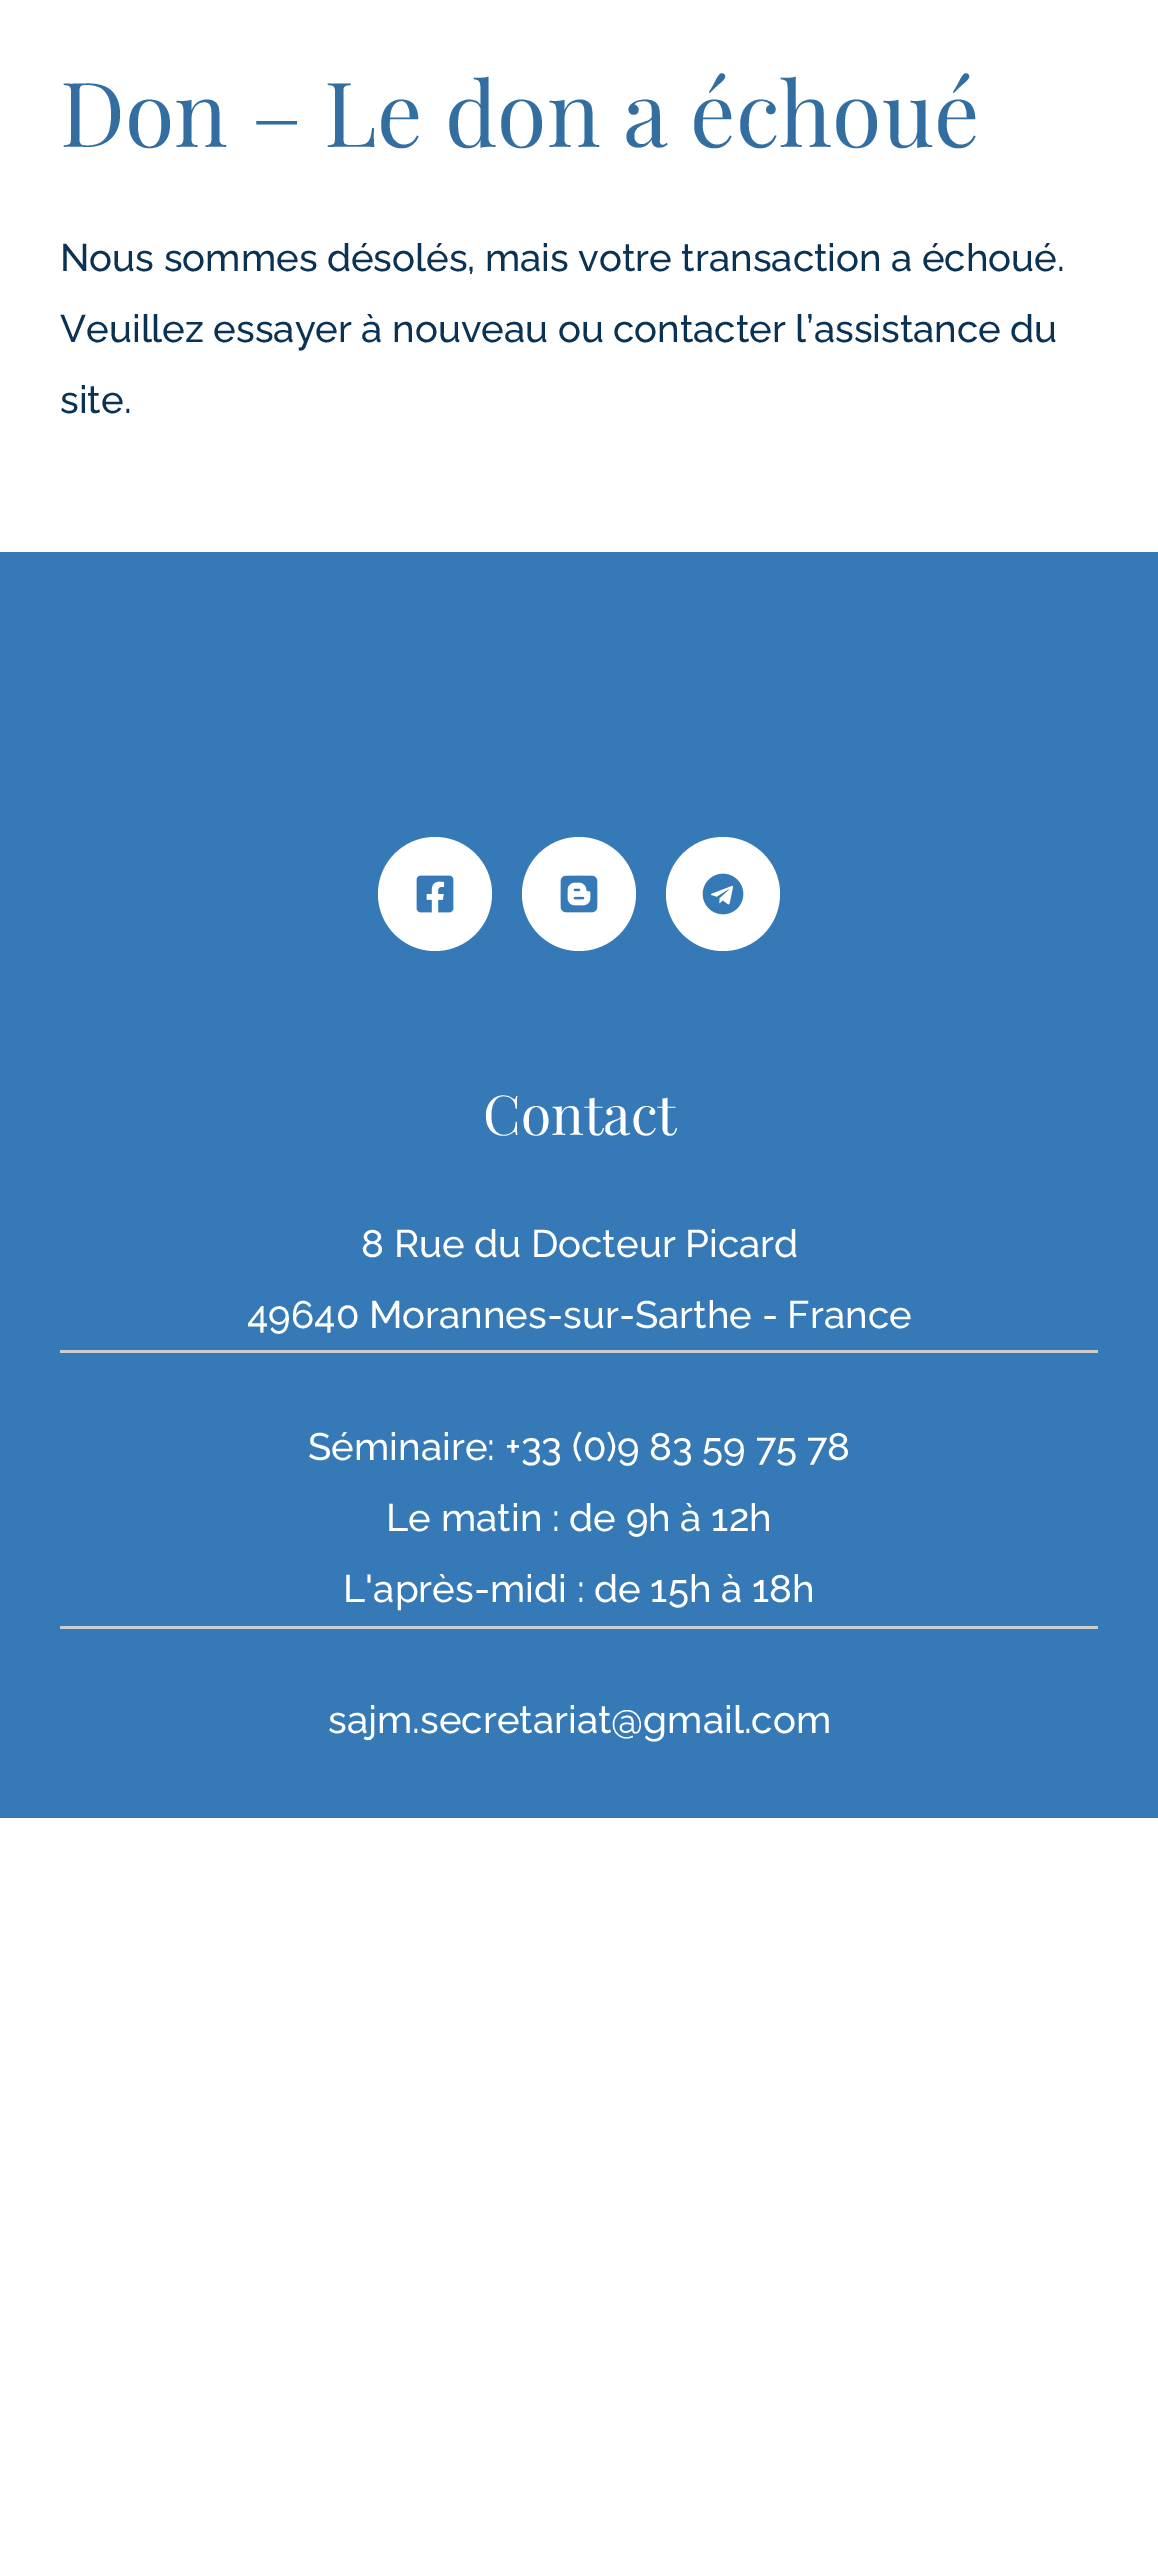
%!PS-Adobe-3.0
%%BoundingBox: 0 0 1158 2574
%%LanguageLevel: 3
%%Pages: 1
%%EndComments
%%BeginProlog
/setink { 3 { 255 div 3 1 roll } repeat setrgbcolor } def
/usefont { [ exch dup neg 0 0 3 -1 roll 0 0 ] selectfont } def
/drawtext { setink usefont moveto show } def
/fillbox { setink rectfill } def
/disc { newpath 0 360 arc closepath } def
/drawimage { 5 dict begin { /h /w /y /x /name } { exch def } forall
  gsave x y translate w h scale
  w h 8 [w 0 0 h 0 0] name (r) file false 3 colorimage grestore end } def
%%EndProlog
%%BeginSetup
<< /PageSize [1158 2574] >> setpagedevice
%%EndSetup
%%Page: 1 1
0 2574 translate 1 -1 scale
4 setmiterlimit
0 0 1158 2574 255 255 255 fillbox
(Don – Le don a échoué) 60 147 /PlayfairDisplay-Regular 90 51 110 161 drawtext
/Raleway-Medium 38.3 usefont
10 50 84 setink
60 271 moveto -0.25 0 32 (Nous sommes désolés, mais votre transaction a échoué.) widthshow
60 342 moveto -0.25 0 32 (Veuillez essayer à nouveau ou contacter l’assistance du) widthshow
(site.) 60 413 /Raleway-Medium 38.3 10 50 84 drawtext
0 552 1158 1266 53 122 183 fillbox
255 255 255 setink
435 894 57 disc fill
(assets/img1.rgb) 416 875 38 38 drawimage
579 894 57 disc fill
(assets/img2.rgb) 560 875 38 38 drawimage
723 894 57 disc fill
(assets/img3.rgb) 702 873 42 42 drawimage
(Contact) 483 1135 /PlayfairDisplay-Regular 55 255 255 255 drawtext
(8 Rue du Docteur Picard) 361 1257 /Raleway-Medium 38.3 255 255 255 drawtext
(49640 Morannes-sur-Sarthe - France) 247 1328 /Raleway-Medium 38.3 255 255 255 drawtext
60 1350 1038 3 204 204 204 fillbox
(Séminaire: +33 \(0\)9 83 59 75 78) 308 1460 /Raleway-Medium 38.3 255 255 255 drawtext
(Le matin : de 9h à 12h) 386 1531 /Raleway-Medium 38.3 255 255 255 drawtext
(L'après-midi : de 15h à 18h) 343 1602 /Raleway-Medium 38.3 255 255 255 drawtext
60 1626 1038 3 204 204 204 fillbox
(sajm.secretariat@gmail.com) 328 1733 /Raleway-Medium 38.3 255 255 255 drawtext
showpage
%%EOF
